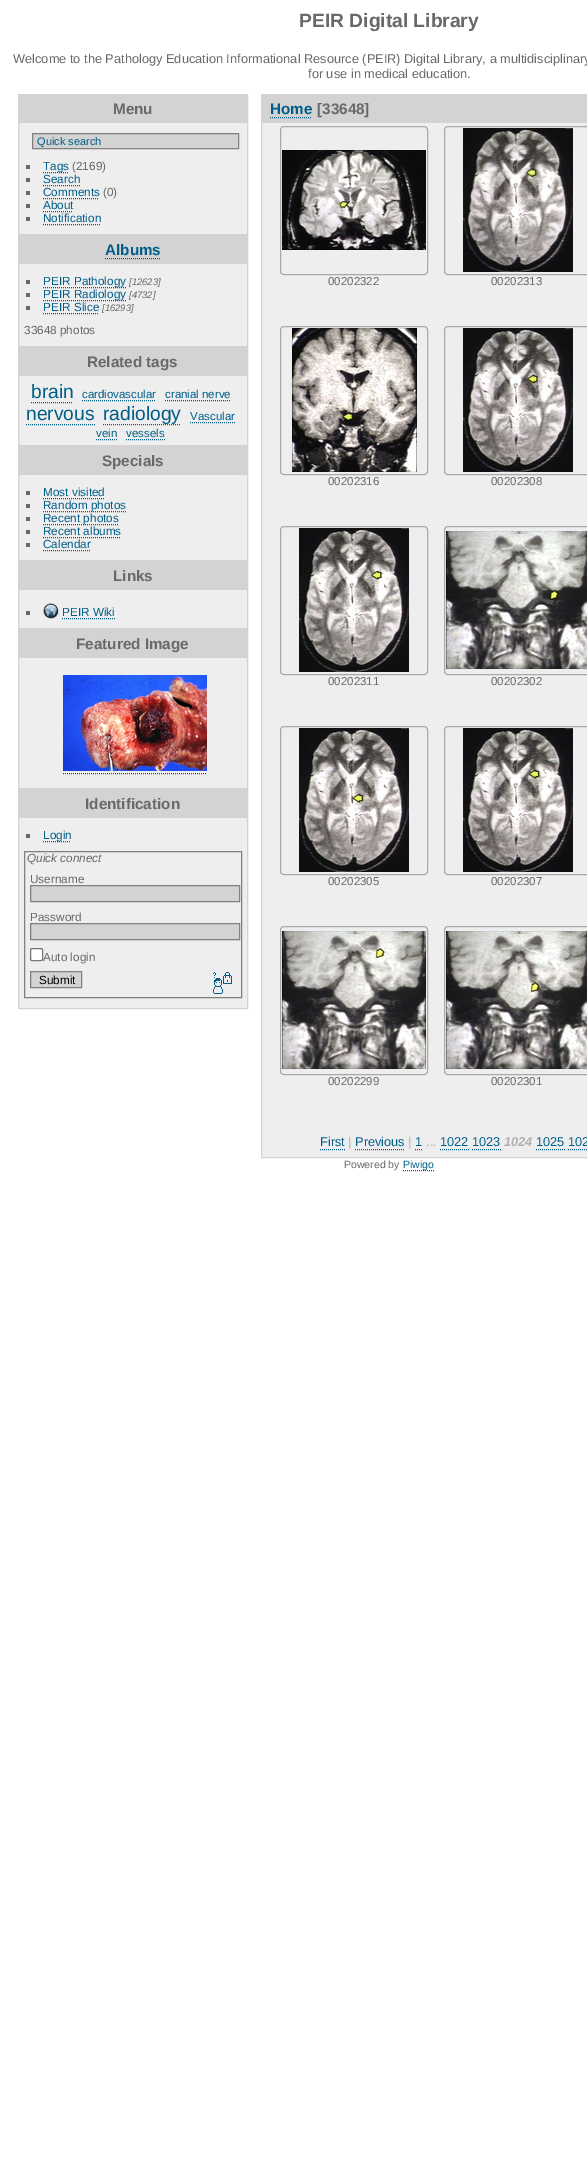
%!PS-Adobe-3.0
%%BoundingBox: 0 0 587 2184
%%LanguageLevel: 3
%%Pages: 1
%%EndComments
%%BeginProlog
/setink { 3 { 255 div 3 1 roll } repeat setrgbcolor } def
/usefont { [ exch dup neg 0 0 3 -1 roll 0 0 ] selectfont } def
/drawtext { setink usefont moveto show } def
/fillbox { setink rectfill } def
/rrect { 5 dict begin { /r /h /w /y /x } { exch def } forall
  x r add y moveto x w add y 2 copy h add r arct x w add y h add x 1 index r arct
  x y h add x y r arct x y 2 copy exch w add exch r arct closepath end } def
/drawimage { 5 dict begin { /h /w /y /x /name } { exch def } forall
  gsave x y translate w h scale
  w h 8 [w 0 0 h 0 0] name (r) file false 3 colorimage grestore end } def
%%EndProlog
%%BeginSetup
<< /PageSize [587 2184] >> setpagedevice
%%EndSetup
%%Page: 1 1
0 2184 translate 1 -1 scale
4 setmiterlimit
0 0 587 2184 255 255 255 fillbox
(PEIR Digital Library) 299 27 /LiberationSans-Bold 19.25 105 105 105 drawtext
(Welcome to the Pathology Education Informational Resource \(PEIR\) Digital Library, a multidisciplinary) 13 63 /LiberationSans-Regular 12.8 105 105 105 drawtext
(for use in medical education.) 308 78 /LiberationSans-Regular 12.8 105 105 105 drawtext
19 123 228 111 238 238 238 fillbox
211 211 211 setink
18.5 94.5 229 140 rectstroke
19 95 228 28 211 211 211 fillbox
(Menu) 113 114 /LiberationSans-Bold 15.25 105 105 105 drawtext
211 211 211 setink
32.5 133.5 moveto 238.5 133.5 lineto 238.5 148.5 lineto 32.5 148.5 lineto closepath gsave fill grestore
128 128 128 setink
stroke
(Quick search) 37 145 /LiberationSans-Regular 11 0 94 137 drawtext
26 165 4 4 105 105 105 fillbox
0 94 137 setink
[1 1] 0 setdash
43 172.5 moveto 69 172.5 lineto stroke
(Tags) 43 170 /LiberationSans-Regular 11.75 0 94 137 drawtext
(\(2169\)) 72 170 /LiberationSans-Regular 11.75 105 105 105 drawtext
26 178 4 4 105 105 105 fillbox
(Search) 43 183 /LiberationSans-Regular 11.75 0 94 137 drawtext
43 185.5 moveto 80 185.5 lineto stroke
26 191 4 4 105 105 105 fillbox
(Comments) 43 196 /LiberationSans-Regular 11.75 0 94 137 drawtext
43 198.5 moveto 99 198.5 lineto stroke
(\(0\)) 103 196 /LiberationSans-Regular 11.75 105 105 105 drawtext
26 204 4 4 105 105 105 fillbox
(About) 43 209 /LiberationSans-Regular 11.75 0 94 137 drawtext
43 211.5 moveto 73 211.5 lineto stroke
26 217 4 4 105 105 105 fillbox
(Notification) 43 222 /LiberationSans-Regular 11.75 0 94 137 drawtext
43 224.5 moveto 101 224.5 lineto stroke
19 264 228 82 238 238 238 fillbox
211 211 211 setink
[] 0 setdash
18.5 235.5 229 111 rectstroke
19 236 228 28 211 211 211 fillbox
(Albums) 105 255 /LiberationSans-Bold 15.25 0 94 137 drawtext
[1 1] 0 setdash
105 258.5 moveto 161 258.5 lineto stroke
26 280 4 4 105 105 105 fillbox
0 94 137 setink
43 287.5 moveto 126 287.5 lineto stroke
(PEIR Pathology) 43 285 /LiberationSans-Regular 11.75 0 94 137 drawtext
([12623]) 129 285 /LiberationSans-Italic 9.5 105 105 105 drawtext
26 293 4 4 105 105 105 fillbox
0 94 137 setink
43 300.5 moveto 126 300.5 lineto stroke
(PEIR Radiology) 43 298 /LiberationSans-Regular 11.75 0 94 137 drawtext
([4732]) 129 298 /LiberationSans-Italic 9.5 105 105 105 drawtext
26 306 4 4 105 105 105 fillbox
(PEIR Slice) 43 311 /LiberationSans-Regular 11.75 0 94 137 drawtext
43 313.5 moveto 99 313.5 lineto stroke
([16293]) 102 311 /LiberationSans-Italic 9.5 105 105 105 drawtext
(33648 photos) 24 334 /LiberationSans-Regular 11.75 105 105 105 drawtext
19 376 228 69 238 238 238 fillbox
211 211 211 setink
[] 0 setdash
18.5 347.5 229 98 rectstroke
19 348 228 28 211 211 211 fillbox
(Related tags) 87 367 /LiberationSans-Bold 15.25 105 105 105 drawtext
(brain) 31 398 /LiberationSans-Regular 19.25 0 94 137 drawtext
[1 1] 0 setdash
31 402.5 moveto 73 402.5 lineto stroke
(cardiovascular) 82 398 /LiberationSans-Regular 11.5 0 94 137 drawtext
82 400.5 moveto 156 400.5 lineto stroke
(cranial nerve) 165 398 /LiberationSans-Regular 11.5 0 94 137 drawtext
165 400.5 moveto 230 400.5 lineto stroke
(nervous) 26 420 /LiberationSans-Regular 19.25 0 94 137 drawtext
26 424.5 moveto 95 424.5 lineto stroke
(radiology) 103 420 /LiberationSans-Regular 19.25 0 94 137 drawtext
103 424.5 moveto 181 424.5 lineto stroke
(Vascular) 190 420 /LiberationSans-Regular 11.5 0 94 137 drawtext
190 422.5 moveto 235 422.5 lineto stroke
(vein) 96 437 /LiberationSans-Regular 11.5 0 94 137 drawtext
96 439.5 moveto 118 439.5 lineto stroke
(vessels) 126 437 /LiberationSans-Regular 11.5 0 94 137 drawtext
126 439.5 moveto 165 439.5 lineto stroke
19 475 228 85 238 238 238 fillbox
211 211 211 setink
[] 0 setdash
18.5 446.5 229 114 rectstroke
19 447 228 28 211 211 211 fillbox
(Specials) 102 466 /LiberationSans-Bold 15.25 105 105 105 drawtext
26 491 4 4 105 105 105 fillbox
(Most visited) 43 496 /LiberationSans-Regular 11.75 0 94 137 drawtext
[1 1] 0 setdash
43 498.5 moveto 105 498.5 lineto stroke
26 504 4 4 105 105 105 fillbox
0 94 137 setink
43 511.5 moveto 126 511.5 lineto stroke
(Random photos) 43 509 /LiberationSans-Regular 11.75 0 94 137 drawtext
26 517 4 4 105 105 105 fillbox
0 94 137 setink
43 524.5 moveto 118 524.5 lineto stroke
(Recent photos) 43 522 /LiberationSans-Regular 11.75 0 94 137 drawtext
26 530 4 4 105 105 105 fillbox
(Recent albums) 43 535 /LiberationSans-Regular 11.75 0 94 137 drawtext
43 537.5 moveto 121 537.5 lineto stroke
26 543 4 4 105 105 105 fillbox
(Calendar) 43 548 /LiberationSans-Regular 11.75 0 94 137 drawtext
43 550.5 moveto 90 550.5 lineto stroke
19 590 228 38 238 238 238 fillbox
211 211 211 setink
[] 0 setdash
18.5 561.5 229 67 rectstroke
19 562 228 28 211 211 211 fillbox
(Links) 113 581 /LiberationSans-Bold 15.25 105 105 105 drawtext
26 611 4 4 105 105 105 fillbox
(assets/img1.rgb) 43 603 16 16 drawimage
(PEIR Wiki) 62 616 /LiberationSans-Regular 11.75 0 94 137 drawtext
[1 1] 0 setdash
62 618.5 moveto 115 618.5 lineto stroke
19 658 228 130 238 238 238 fillbox
211 211 211 setink
[] 0 setdash
18.5 629.5 229 159 rectstroke
19 630 228 28 211 211 211 fillbox
(Featured Image) 76 649 /LiberationSans-Bold 15.25 105 105 105 drawtext
(assets/img2.rgb) 63 675 144 96 drawimage
0 94 137 setink
[1 1] 0 setdash
63 773.5 moveto 207 773.5 lineto stroke
19 818 228 190 238 238 238 fillbox
211 211 211 setink
[] 0 setdash
18.5 789.5 229 219 rectstroke
19 790 228 28 211 211 211 fillbox
(Identification) 85 809 /LiberationSans-Bold 15.25 105 105 105 drawtext
26 834 4 4 105 105 105 fillbox
0 94 137 setink
[1 1] 0 setdash
43 841.5 moveto 71 841.5 lineto stroke
(Login) 43 839 /LiberationSans-Regular 11.75 0 94 137 drawtext
128 128 128 setink
[] 0 setdash
24.5 851.5 217 146 rectstroke
(Quick connect) 27 862 /LiberationSans-Italic 11.75 105 105 105 drawtext
(Username) 30 883 /LiberationSans-Regular 11.75 105 105 105 drawtext
211 211 211 setink
30.5 885.5 moveto 239.5 885.5 lineto 239.5 901.5 lineto 30.5 901.5 lineto closepath gsave fill grestore
128 128 128 setink
stroke
(Password) 30 921 /LiberationSans-Regular 11.75 105 105 105 drawtext
211 211 211 setink
30.5 923.5 moveto 239.5 923.5 lineto 239.5 939.5 lineto 30.5 939.5 lineto closepath gsave fill grestore
128 128 128 setink
stroke
255 255 255 setink
30.5 948.5 12 12 1.5 rrect gsave fill grestore
118 118 118 setink
stroke
(Auto login) 43 961 /LiberationSans-Regular 11.75 105 105 105 drawtext
211 211 211 setink
30.5 971.5 moveto 81.5 971.5 lineto 81.5 987.5 lineto 30.5 987.5 lineto closepath gsave fill grestore
128 128 128 setink
stroke
(Submit) 39 984 /LiberationSans-Regular 11.75 0 0 0 drawtext
(assets/img3.rgb) 213 972 19 22 drawimage
262 123 325 1034 238 238 238 fillbox
211 211 211 setink
261.5 94.5 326 1063 rectstroke
262 95 325 28 211 211 211 fillbox
(Home) 270 114 /LiberationSans-Bold 15.25 0 94 137 drawtext
[1 1] 0 setdash
270 117.5 moveto 312 117.5 lineto stroke
([33648]) 317 114 /LiberationSans-Bold 15.25 105 105 105 drawtext
170 170 170 setink
[] 0 setdash
280.5 126.5 147 148 3.5 rrect stroke
(assets/img4.rgb) 282 150 144 100 drawimage
(00202322) 328 285 /LiberationSans-Regular 11.5 105 105 105 drawtext
170 170 170 setink
444.5 126.5 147 148 3.5 rrect stroke
(assets/img5.rgb) 463 128 110 144 drawimage
(00202313) 491 285 /LiberationSans-Regular 11.5 105 105 105 drawtext
170 170 170 setink
280.5 326.5 147 148 3.5 rrect stroke
(assets/img6.rgb) 292 328 125 144 drawimage
(00202316) 328 485 /LiberationSans-Regular 11.5 105 105 105 drawtext
170 170 170 setink
444.5 326.5 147 148 3.5 rrect stroke
(assets/img7.rgb) 463 328 110 144 drawimage
(00202308) 491 485 /LiberationSans-Regular 11.5 105 105 105 drawtext
170 170 170 setink
280.5 526.5 147 148 3.5 rrect stroke
(assets/img8.rgb) 299 528 110 144 drawimage
(00202311) 328 685 /LiberationSans-Regular 11.5 105 105 105 drawtext
170 170 170 setink
444.5 526.5 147 148 3.5 rrect stroke
(assets/img9.rgb) 446 531 141 138 drawimage
(00202302) 491 685 /LiberationSans-Regular 11.5 105 105 105 drawtext
170 170 170 setink
280.5 726.5 147 148 3.5 rrect stroke
(assets/img10.rgb) 299 728 110 144 drawimage
(00202305) 328 885 /LiberationSans-Regular 11.5 105 105 105 drawtext
170 170 170 setink
444.5 726.5 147 148 3.5 rrect stroke
(assets/img11.rgb) 463 728 110 144 drawimage
(00202307) 491 885 /LiberationSans-Regular 11.5 105 105 105 drawtext
170 170 170 setink
280.5 926.5 147 148 3.5 rrect stroke
(assets/img12.rgb) 282 931 144 138 drawimage
(00202299) 328 1085 /LiberationSans-Regular 11.5 105 105 105 drawtext
170 170 170 setink
444.5 926.5 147 148 3.5 rrect stroke
(assets/img13.rgb) 446 931 141 138 drawimage
(00202301) 491 1085 /LiberationSans-Regular 11.5 105 105 105 drawtext
(First) 320 1146 /LiberationSans-Regular 12.8 0 94 137 drawtext
[1 1] 0 setdash
320 1149.5 moveto 345 1149.5 lineto stroke
(|) 348 1146 /LiberationSans-Regular 12.8 176 176 176 drawtext
(Previous) 355 1146 /LiberationSans-Regular 12.8 0 94 137 drawtext
355 1149.5 moveto 405 1149.5 lineto stroke
(|) 408 1146 /LiberationSans-Regular 12.8 176 176 176 drawtext
(1) 415 1146 /LiberationSans-Regular 12.8 0 94 137 drawtext
[] 0 setdash
415 1149.5 moveto 416 1149.5 lineto 417 1149.5 moveto 418 1149.5 lineto 419 1149.5 moveto 420 1149.5 lineto 421 1149.5 moveto 422 1149.5 lineto stroke
(...) 426 1146 /LiberationSans-Regular 12.8 176 176 176 drawtext
(1022 1023) 440 1146 /LiberationSans-Regular 12.8 0 94 137 drawtext
[1 1] 0 setdash
440 1149.5 moveto 469 1149.5 lineto stroke
(1024) 504 1146 /LiberationSans-BoldItalic 12.8 176 176 176 drawtext
(1025 102) 536 1146 /LiberationSans-Regular 12.8 0 94 137 drawtext
536 1149.5 moveto 565 1149.5 lineto stroke
472 1149.5 moveto 501 1149.5 lineto stroke
568 1149.5 moveto 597 1149.5 lineto stroke
(Powered by) 344 1168 /LiberationSans-Regular 10.5 105 105 105 drawtext
0 94 137 setink
403 1170.5 moveto 434 1170.5 lineto stroke
(Piwigo) 403 1168 /LiberationSans-Regular 10.5 0 94 137 drawtext
showpage
%%EOF
